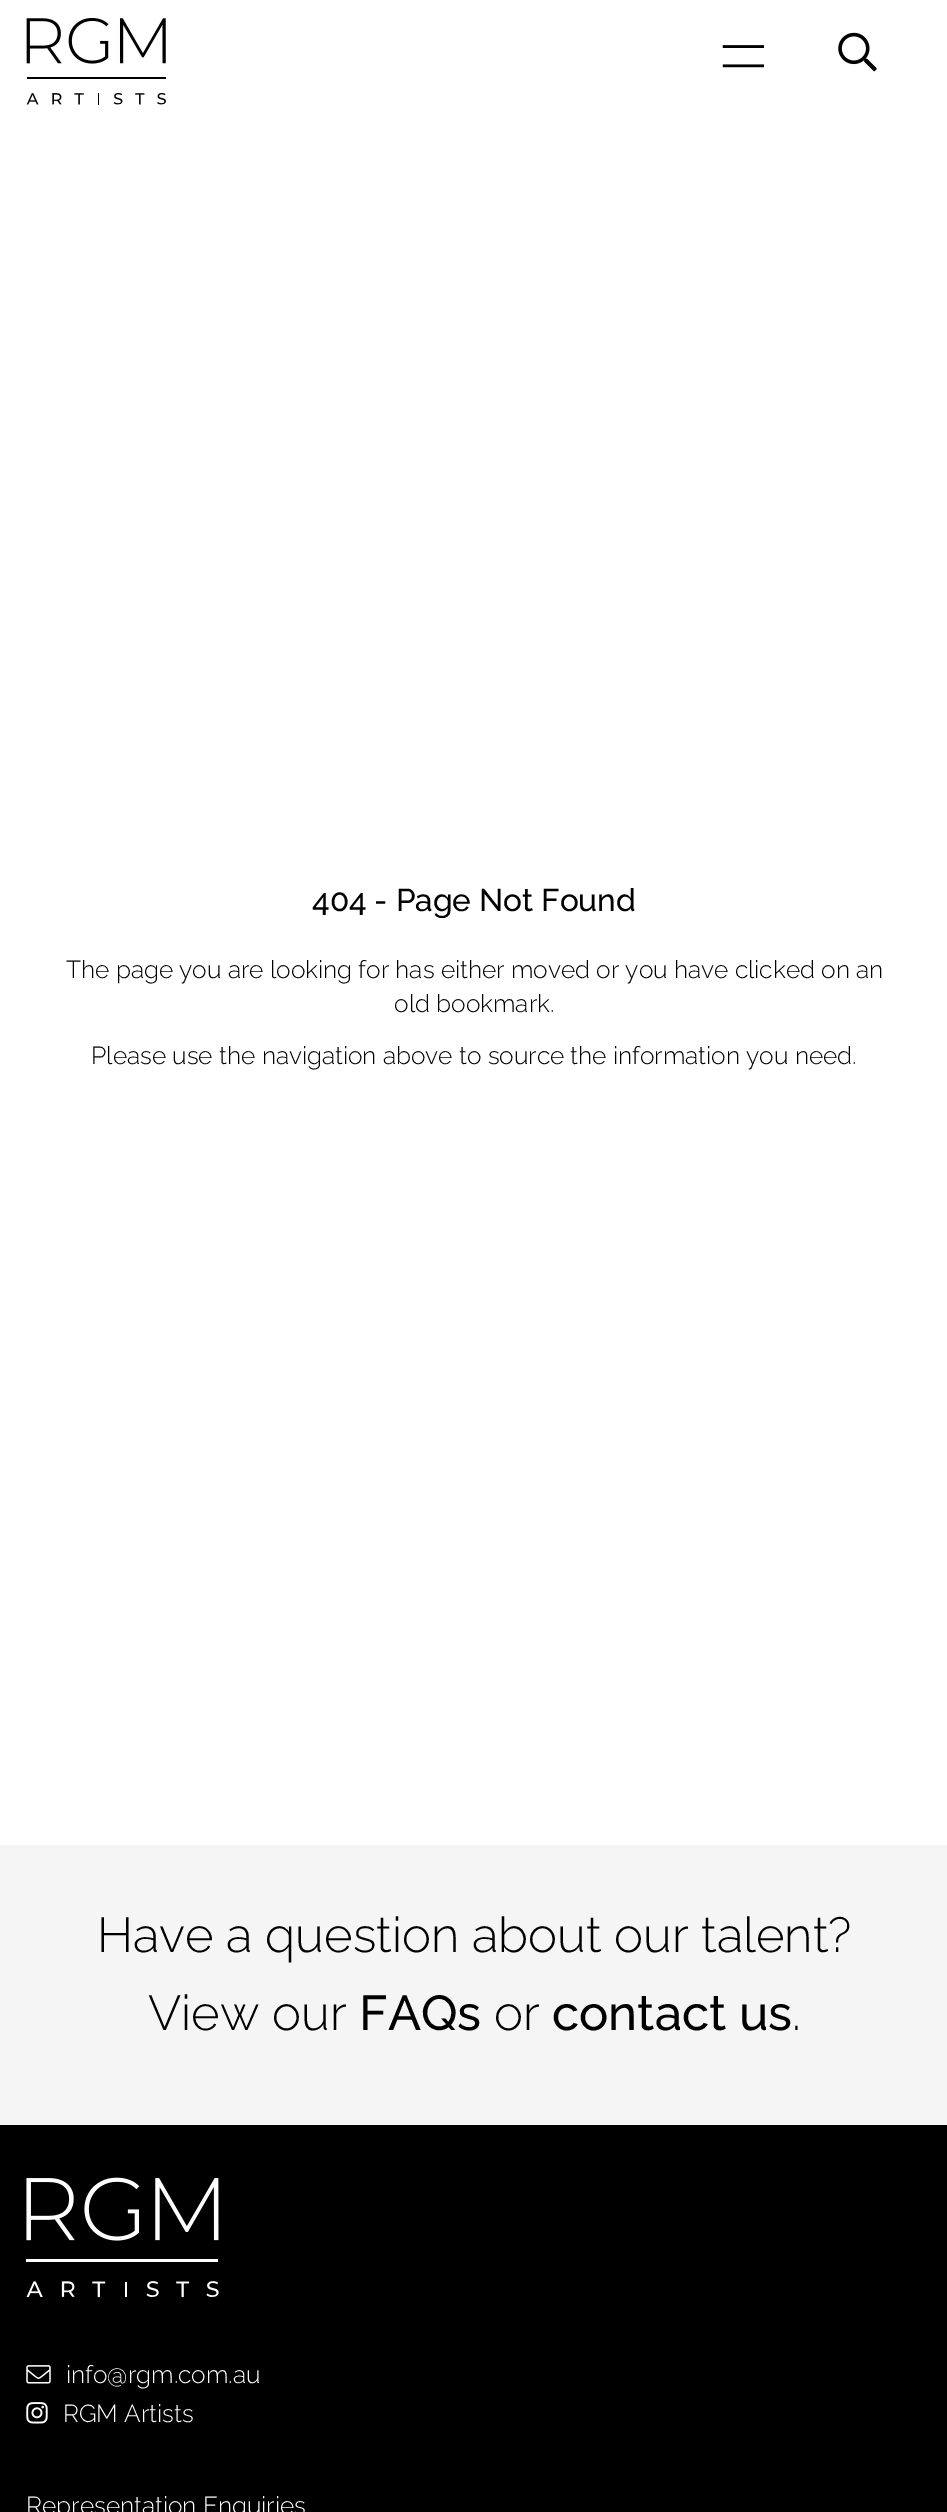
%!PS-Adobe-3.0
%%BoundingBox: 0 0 947 2512
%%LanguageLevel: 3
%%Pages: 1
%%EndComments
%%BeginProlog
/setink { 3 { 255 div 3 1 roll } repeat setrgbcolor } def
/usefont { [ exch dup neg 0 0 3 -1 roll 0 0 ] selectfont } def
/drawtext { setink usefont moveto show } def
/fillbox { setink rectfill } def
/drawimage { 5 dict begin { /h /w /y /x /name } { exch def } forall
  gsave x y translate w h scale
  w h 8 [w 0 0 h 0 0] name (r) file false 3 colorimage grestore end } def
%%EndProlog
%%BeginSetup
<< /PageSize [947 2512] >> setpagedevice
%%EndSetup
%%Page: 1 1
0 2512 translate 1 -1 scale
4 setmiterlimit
0 0 947 2512 255 255 255 fillbox
(assets/img1.rgb) 26 18 140 87 drawimage
(assets/img2.rgb) 722 45 42 23 drawimage
(assets/img3.rgb) 838 32 39 40 drawimage
(404 - Page Not Found) 312 911 /Raleway-Medium 31.5 0 0 0 drawtext
(The page you are looking for has either moved or you have clicked on an) 66 978 /Raleway-Light 24.5 0 0 0 drawtext
(old bookmark.) 394 1012 /Raleway-Light 24.5 0 0 0 drawtext
(Please use the navigation above to source the information you need.) 91 1064 /Raleway-Light 24.5 0 0 0 drawtext
0 1845 947 280 245 245 245 fillbox
(Have a question about our talent?) 97 1952 /Raleway-Light 49 0 0 0 drawtext
(View our) 148 2030 /Raleway-Light 49 0 0 0 drawtext
(FAQs) 359 2030 /Raleway-Medium 49 0 0 0 drawtext
(or) 494 2030 /Raleway-Light 49 0 0 0 drawtext
(contact us) 552 2030 /Raleway-Medium 49 0 0 0 drawtext
(.) 792 2030 /Raleway-Light 49 0 0 0 drawtext
0 2125 947 387 0 0 0 fillbox
(assets/img4.rgb) 26 2177 193 121 drawimage
(assets/img5.rgb) 26 2365 25 19 drawimage
(info@rgm.com.au) 66 2383 /Raleway-Light 24.5 255 255 255 drawtext
(assets/img6.rgb) 26 2402 22 22 drawimage
(RGM Artists) 63 2422 /Raleway-Light 24.5 255 255 255 drawtext
(Representation Enquiries) 26 2514 /Raleway-Light 24.5 255 255 255 drawtext
showpage
%%EOF
